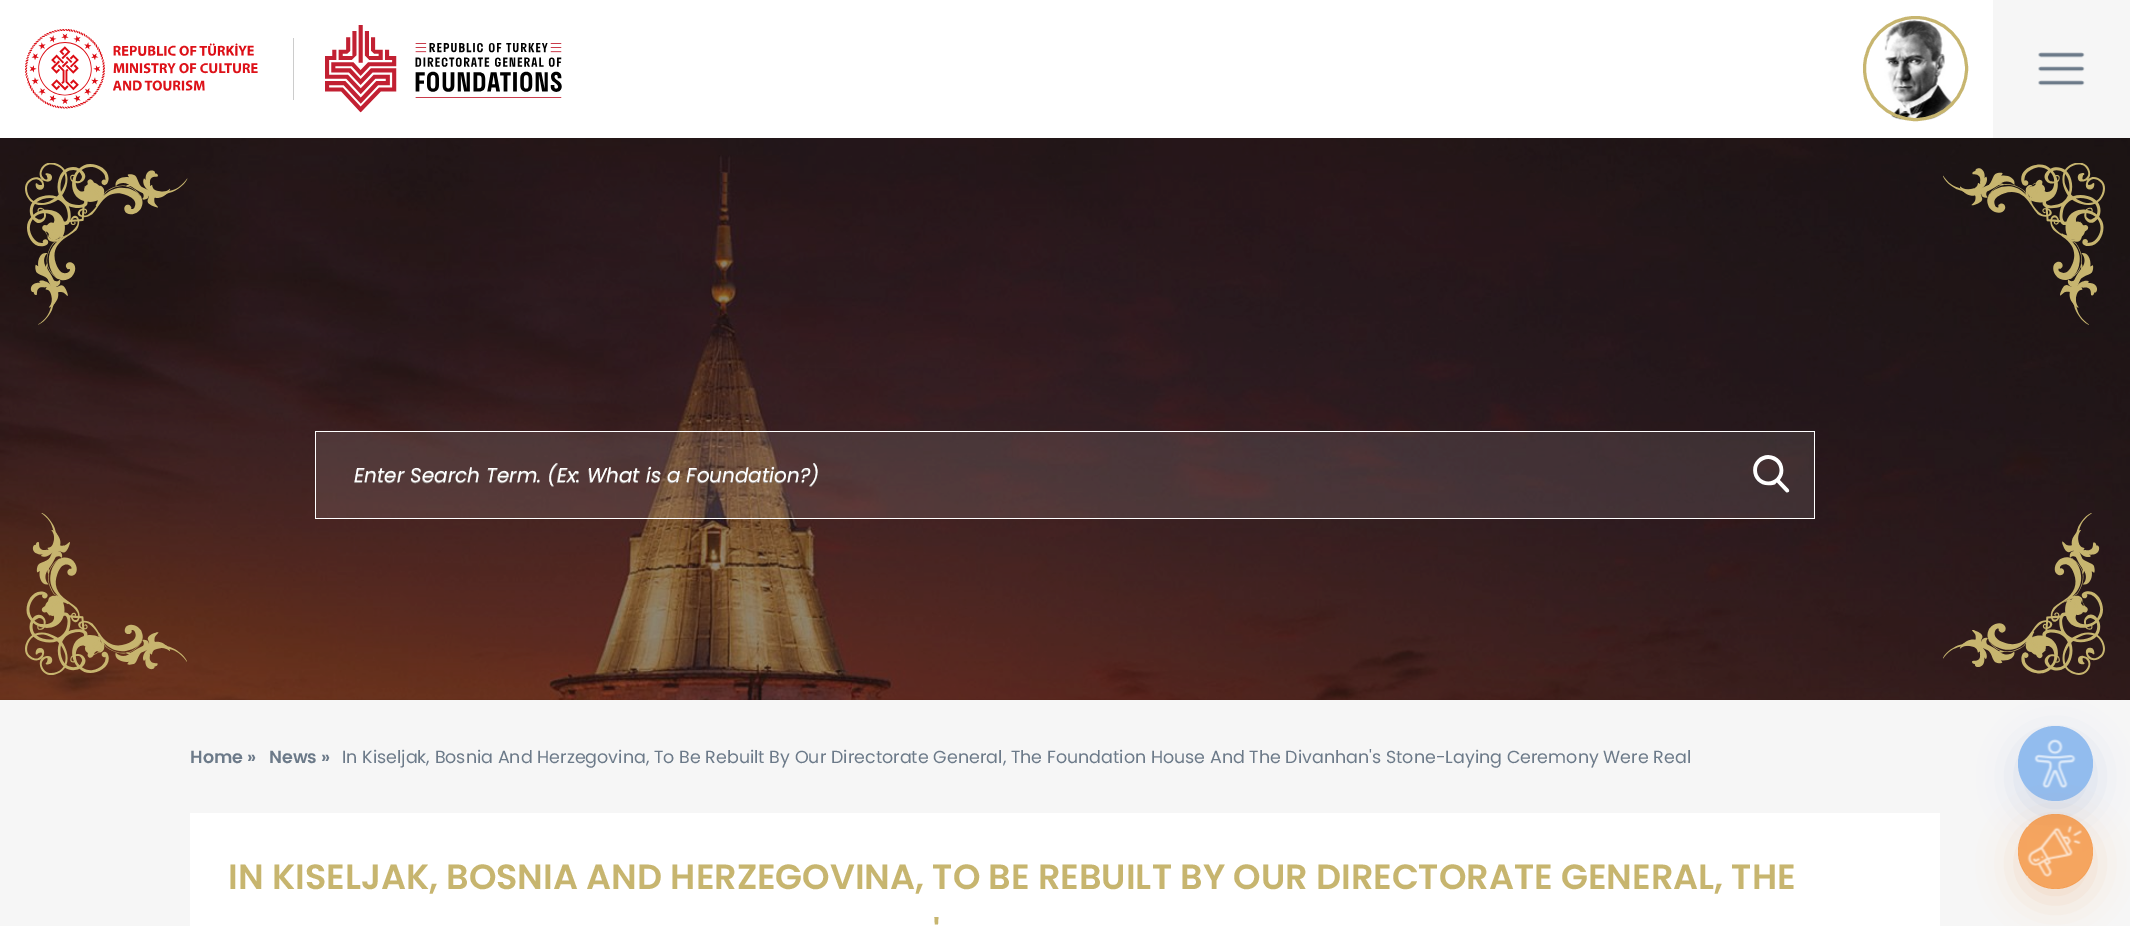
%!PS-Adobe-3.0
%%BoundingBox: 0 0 2130 926
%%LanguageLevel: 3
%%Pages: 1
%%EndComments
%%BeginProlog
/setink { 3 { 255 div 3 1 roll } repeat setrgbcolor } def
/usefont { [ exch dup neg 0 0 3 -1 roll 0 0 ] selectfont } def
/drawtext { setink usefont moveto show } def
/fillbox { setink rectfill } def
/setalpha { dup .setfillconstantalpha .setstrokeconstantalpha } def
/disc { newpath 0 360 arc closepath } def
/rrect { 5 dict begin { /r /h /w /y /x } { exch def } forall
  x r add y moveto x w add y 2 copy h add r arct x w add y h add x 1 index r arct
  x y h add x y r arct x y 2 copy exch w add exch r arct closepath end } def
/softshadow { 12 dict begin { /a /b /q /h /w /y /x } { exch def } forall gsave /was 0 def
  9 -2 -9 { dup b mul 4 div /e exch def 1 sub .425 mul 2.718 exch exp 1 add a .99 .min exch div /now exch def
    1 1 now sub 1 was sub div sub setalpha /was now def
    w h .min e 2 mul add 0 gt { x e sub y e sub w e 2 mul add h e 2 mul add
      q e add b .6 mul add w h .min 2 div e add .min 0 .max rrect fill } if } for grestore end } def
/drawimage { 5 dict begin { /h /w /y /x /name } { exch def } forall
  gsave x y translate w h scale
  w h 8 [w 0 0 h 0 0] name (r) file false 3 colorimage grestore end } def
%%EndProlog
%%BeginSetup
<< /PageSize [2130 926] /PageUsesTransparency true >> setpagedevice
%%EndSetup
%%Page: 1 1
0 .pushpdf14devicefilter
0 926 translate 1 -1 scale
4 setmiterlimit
0 0 2130 926 246 246 246 fillbox
0 0 1993 138 255 255 255 fillbox
(assets/img1.rgb) 25 29 233 80 drawimage
293 38 1 62 204 204 204 fillbox
(assets/img2.rgb) 325 25 237 88 drawimage
(assets/img3.rgb) 1884 20 70 100 drawimage
199 181 111 setink
3 setlinewidth
1915.5 68.5 51 disc stroke
(assets/img4.rgb) 2038 52 47 34 drawimage
(assets/img5.rgb) 0 138 2130 562 drawimage
(assets/img6.rgb) 25 163 163 162 drawimage
(assets/img7.rgb) 1943 163 162 162 drawimage
0.1 setalpha
316 432 1412 86 255 255 255 fillbox
1 setalpha
315 431 1500 1 255 255 255 fillbox
315 518 1413 1 255 255 255 fillbox
315 431 1 88 255 255 255 fillbox
(Enter Search Term. \(Ex: What is a Foundation?\)) 354 482 /Poppins-Italic 20 255 255 255 drawtext
0.1 setalpha
1728 432 86 86 255 255 255 fillbox
1 setalpha
(assets/img8.rgb) 1753 455 37 38 drawimage
1814 431 1 88 255 255 255 fillbox
1728 518 87 1 255 255 255 fillbox
(assets/img9.rgb) 25 513 162 162 drawimage
(assets/img10.rgb) 1943 513 162 162 drawimage
(Home ») 190 763 /Poppins-SemiBold 17.5 108 122 137 drawtext
(News ») 269 763 /Poppins-SemiBold 17.5 108 122 137 drawtext
(In Kiseljak, Bosnia And Herzegovina, To Be Rebuilt By Our Directorate General, The Foundation House And The Divanhan's Stone-Laying Ceremony Were Real) 342 763 /Poppins-Regular 17.5 108 122 137 drawtext
190 813 1750 113 255 255 255 fillbox
(IN KISELJAK, BOSNIA AND HERZEGOVINA, TO BE REBUILT BY OUR DIRECTORATE GENERAL, THE) 228 889 /Poppins-SemiBold 35 199 181 111 drawtext
(') 933 945 /Poppins-SemiBold 35 199 181 111 drawtext
132 166 206 setink
2018 739 75 75 37.5 19 0.3 softshadow
146 188 238 setink
2055.5 763.5 37.5 disc fill
(assets/img11.rgb) 2034 739 42 50 drawimage
gsave
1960 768 moveto 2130 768 lineto 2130 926 lineto 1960 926 lineto closepath 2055.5 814 moveto 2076 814 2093 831 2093 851.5 curveto 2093 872 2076 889 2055.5 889 curveto 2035 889 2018 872 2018 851.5 curveto 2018 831 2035 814 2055.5 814 curveto closepath eoclip newpath
225 110 11 setink
2018 826 75 75 37.5 19 0.21 softshadow
grestore
0.7 setalpha
245 130 31 setink
2055.5 851.5 37.5 disc fill
1 setalpha
(assets/img12.rgb) 2027 825 55 52 drawimage
.poppdf14devicefilter showpage
%%EOF
